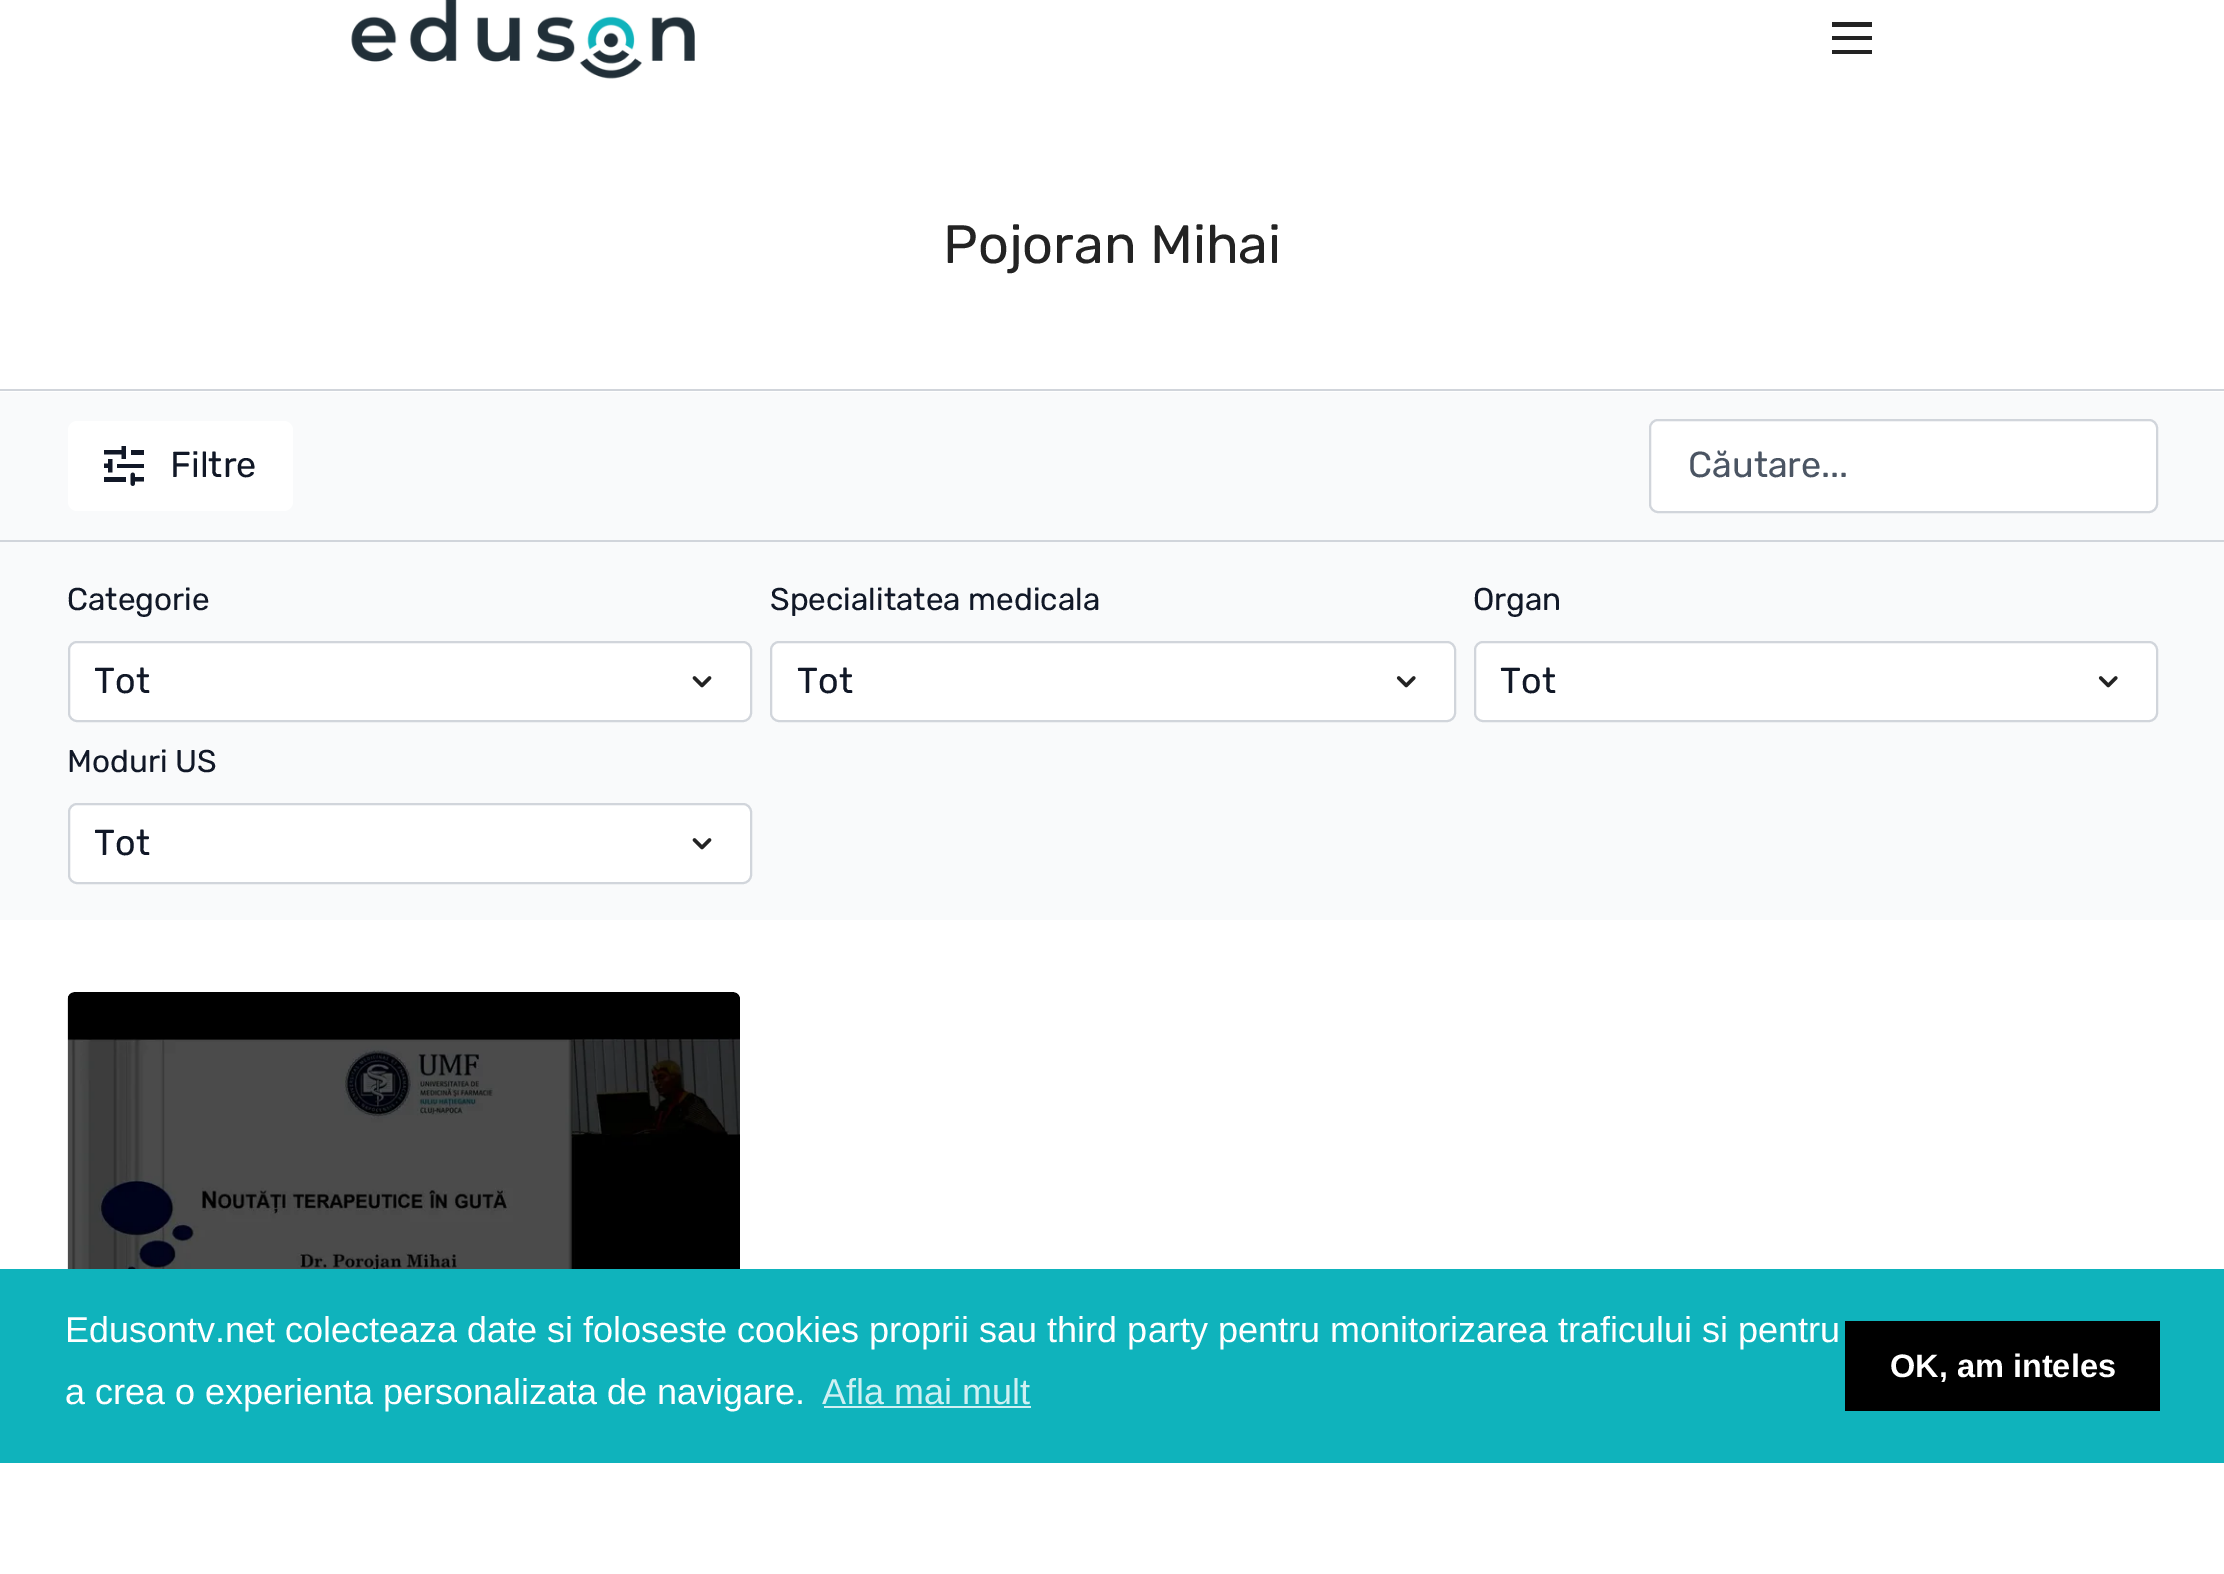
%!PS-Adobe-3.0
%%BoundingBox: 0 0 2224 1574
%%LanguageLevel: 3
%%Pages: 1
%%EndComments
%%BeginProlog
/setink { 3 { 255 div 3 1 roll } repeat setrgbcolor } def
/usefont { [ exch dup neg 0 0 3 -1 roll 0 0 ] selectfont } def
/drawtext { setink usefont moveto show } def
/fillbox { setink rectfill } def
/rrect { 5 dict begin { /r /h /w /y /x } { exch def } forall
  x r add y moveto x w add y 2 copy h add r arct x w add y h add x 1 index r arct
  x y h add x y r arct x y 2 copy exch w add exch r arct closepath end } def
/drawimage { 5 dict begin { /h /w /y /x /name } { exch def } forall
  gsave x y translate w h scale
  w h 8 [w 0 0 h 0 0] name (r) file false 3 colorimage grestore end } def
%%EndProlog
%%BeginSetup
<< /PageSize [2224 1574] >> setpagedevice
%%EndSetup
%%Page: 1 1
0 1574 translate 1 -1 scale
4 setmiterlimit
0 0 2224 1574 255 255 255 fillbox
(assets/img1.rgb) 351 0 344 79 drawimage
35 35 35 setink
1872 27 moveto 1832 27 lineto 1832 22 lineto 1872 22 lineto closepath 1872 40 moveto 1832 40 lineto 1832 36 lineto 1872 36 lineto closepath 1832 54 moveto 1872 54 lineto 1872 50 lineto 1832 50 lineto closepath fill
0 389 2224 2 209 213 219 fillbox
(Pojoran Mihai) 943 263 /Rubik-Regular 54 35 35 35 drawtext
0 392 2224 528 249 250 251 fillbox
0 540 2224 2 209 213 219 fillbox
255 255 255 setink
68 421 225 90 9 rrect fill
(assets/img2.rgb) 104 446 40 40 drawimage
(Filtre) 170 477 /Rubik-Regular 36 17 24 39 drawtext
255 255 255 setink
1650 420 507 92 8 rrect gsave fill grestore
209 213 219 setink
2 setlinewidth
stroke
(Căutare...) 1688 477 /Rubik-Regular 36 75 85 99 drawtext
(Categorie) 67 610 /Rubik-Regular 31.5 17 24 39 drawtext
255 255 255 setink
68 641 684 81 9 rrect fill
(assets/img3.rgb) 692 676 20 12 drawimage
209 213 219 setink
69 642 682 79 8 rrect stroke
gsave
95 659 558 45 rectclip
(Tot) 94 693 /Rubik-Regular 36 17 24 39 drawtext
grestore
(Specialitatea medicala) 770 610 /Rubik-Regular 31.5 17 24 39 drawtext
255 255 255 setink
770 641 686 81 9 rrect fill
(assets/img4.rgb) 1396 676 20 12 drawimage
209 213 219 setink
771 642 684 79 8 rrect stroke
(Tot) 797 693 /Rubik-Regular 36 17 24 39 drawtext
(Organ) 1473 610 /Rubik-Regular 31.5 17 24 39 drawtext
255 255 255 setink
1474 641 684 81 9 rrect fill
(assets/img4.rgb) 2098 676 20 12 drawimage
209 213 219 setink
1475 642 682 79 8 rrect stroke
(Tot) 1500 693 /Rubik-Regular 36 17 24 39 drawtext
(Moduri US) 67 772 /Rubik-Regular 31.5 17 24 39 drawtext
255 255 255 setink
68 803 684 81 9 rrect fill
(assets/img3.rgb) 692 838 20 12 drawimage
209 213 219 setink
69 804 682 79 8 rrect stroke
gsave
95 821 558 45 rectclip
(Tot) 94 855 /Rubik-Regular 36 17 24 39 drawtext
grestore
(assets/img5.rgb) 67 992 673 277 drawimage
0 1269 2224 194 15 179 188 fillbox
(Edusontv.net colecteaza date si foloseste cookies proprii sau third party pentru monitorizarea traficului si pentru) 65 1342 /LiberationSans-Regular 36 255 255 255 drawtext
(a crea o experienta personalizata de navigare.) 65 1404 /LiberationSans-Regular 36 255 255 255 drawtext
(Afla mai mult) 822 1404 /LiberationSans-Regular 36 207 240 242 drawtext
824 1406 207 2 207 240 242 fillbox
1845 1321 315 90 0 0 0 fillbox
(OK, am inteles) 1890 1377 /LiberationSans-Bold 32.5 255 255 255 drawtext
showpage
%%EOF
